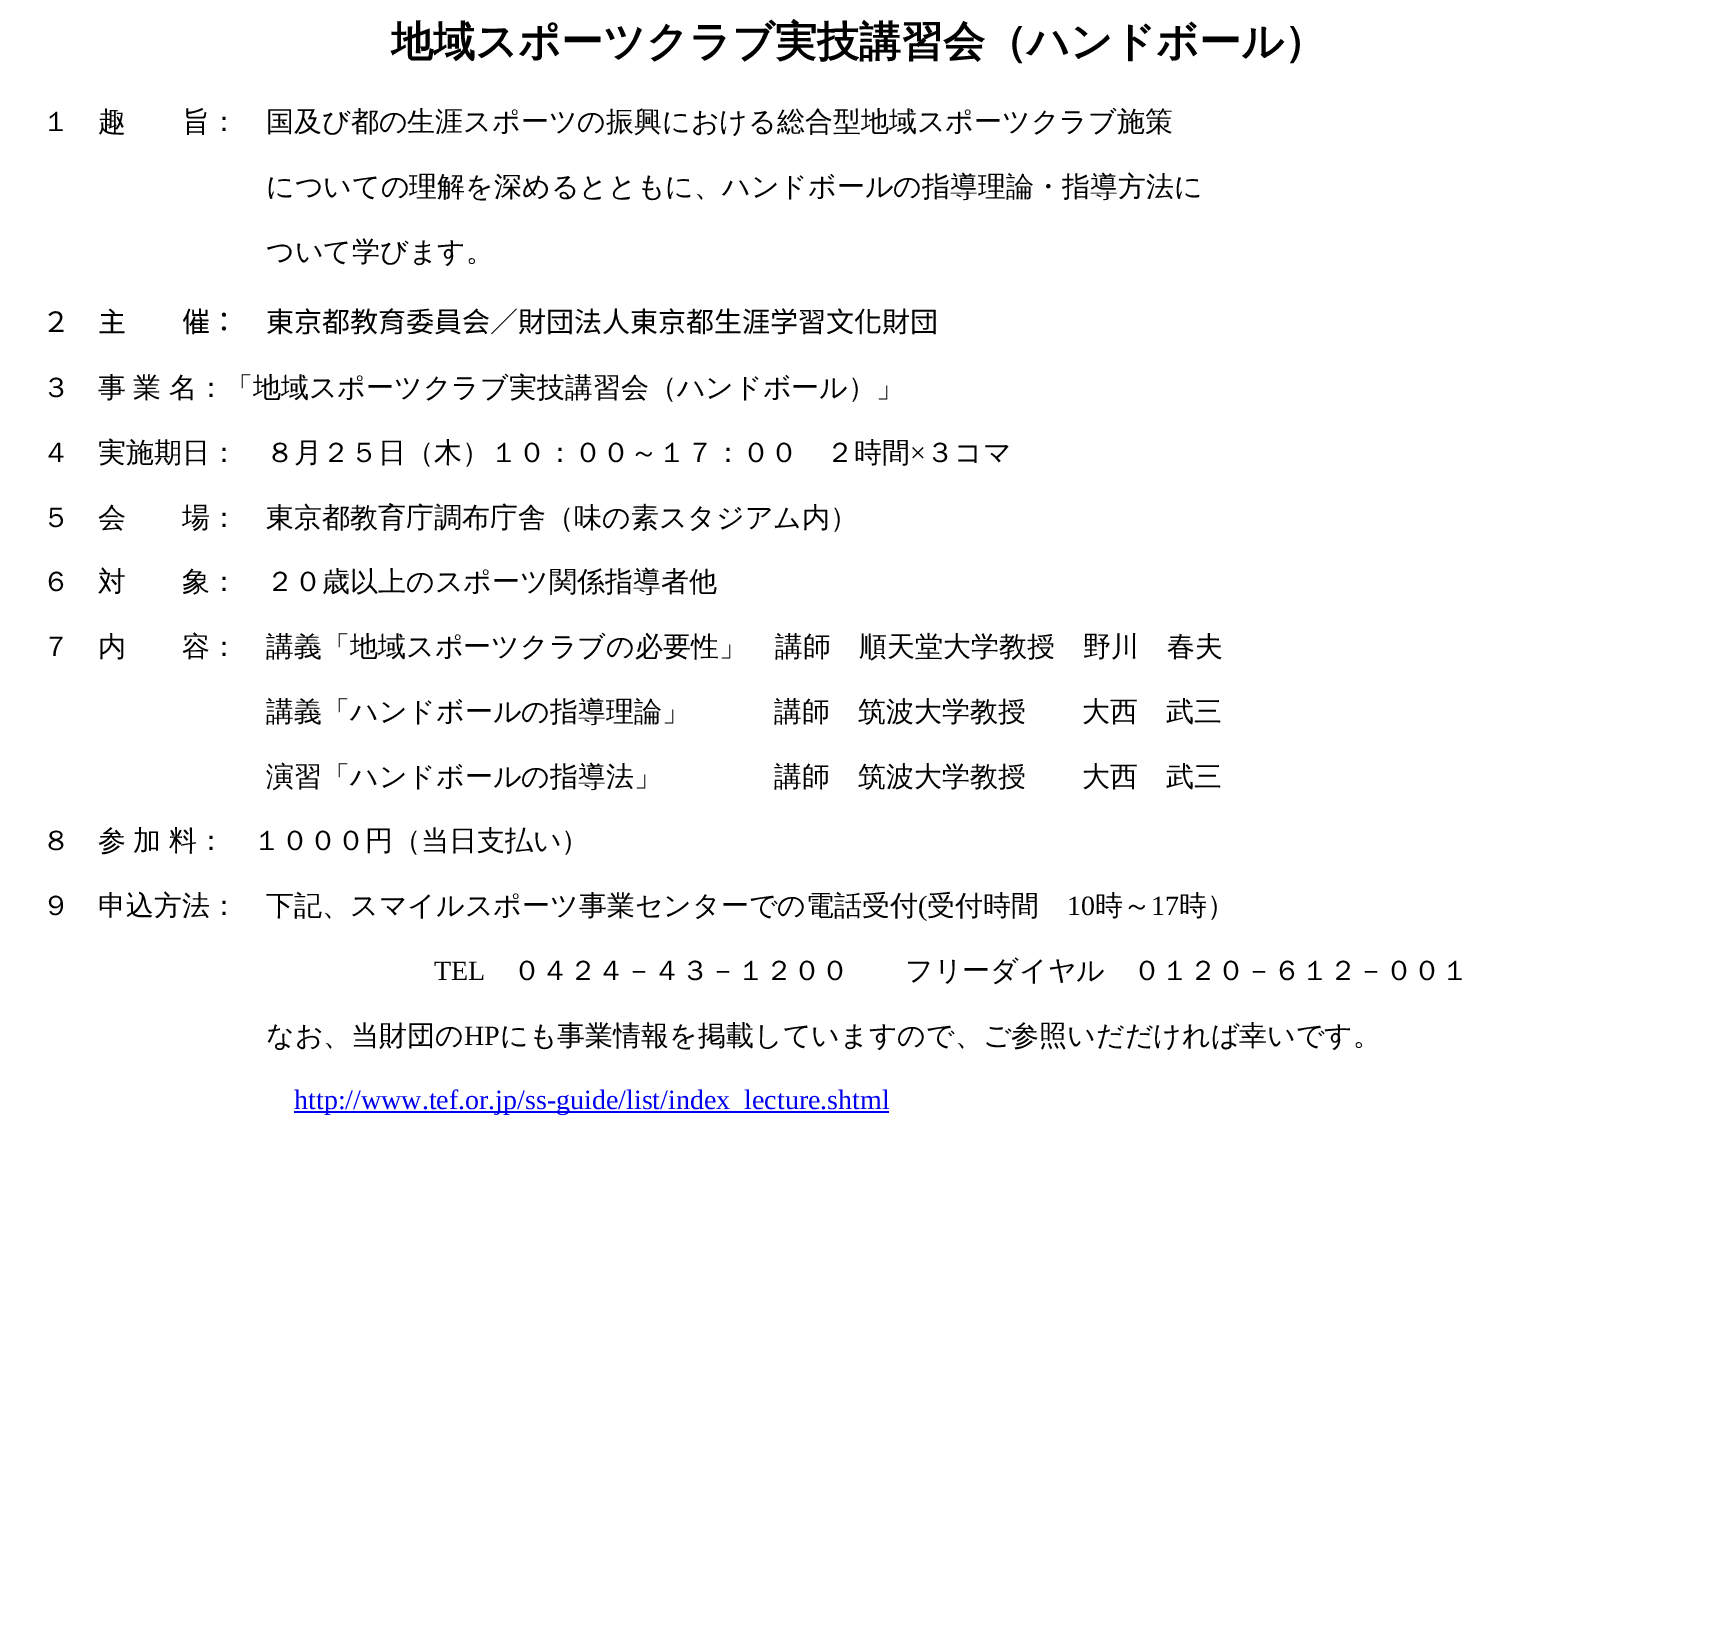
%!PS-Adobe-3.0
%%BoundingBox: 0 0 1716 1649
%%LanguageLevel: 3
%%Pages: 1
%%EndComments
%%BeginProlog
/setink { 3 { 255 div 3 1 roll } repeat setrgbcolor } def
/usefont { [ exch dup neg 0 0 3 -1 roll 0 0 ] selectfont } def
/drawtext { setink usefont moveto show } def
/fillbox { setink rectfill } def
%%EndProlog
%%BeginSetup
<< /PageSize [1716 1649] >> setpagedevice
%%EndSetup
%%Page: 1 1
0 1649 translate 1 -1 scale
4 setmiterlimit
0 0 1716 1649 255 255 255 fillbox
(地域スポーツクラブ実技講習会（ハンドボール）) 391 56 /WenQuanYiZenHei-Bold 42 0 0 0 drawtext
(１　趣　　旨：　国及び都の生涯スポーツの振興における総合型地域スポーツクラブ施策) 42 131 /WenQuanYiZenHei-Medium 28 0 0 0 drawtext
(についての理解を深めるとともに、ハンドボールの指導理論・指導方法に) 266 196 /WenQuanYiZenHei-Medium 28 0 0 0 drawtext
(ついて学びます。) 266 261 /WenQuanYiZenHei-Medium 28 0 0 0 drawtext
(２　主　　催：　東京都教育委員会／財団法人東京都生涯学習文化財団) 42 332 /NotoSansCJKTC-Regular 28 0 0 0 drawtext
/WenQuanYiZenHei-Medium 28 usefont
42 397 moveto -1 0 32 (３　事 業 名：「地域スポーツクラブ実技講習会（ハンドボール）」) widthshow
(４　実施期日：　８月２５日（木）１０：００～１７：００　２時間) 42 462 /WenQuanYiZenHei-Medium 28 0 0 0 drawtext
(×) 910 462 /LiberationSerif-Regular 28 0 0 0 drawtext
(３コマ) 926 462 /WenQuanYiZenHei-Medium 28 0 0 0 drawtext
(５　会　　場：　東京都教育庁調布庁舎（味の素スタジアム内）) 42 527 /WenQuanYiZenHei-Medium 28 0 0 0 drawtext
(６　対　　象：　２０歳以上のスポーツ関係指導者他) 42 591 /WenQuanYiZenHei-Medium 28 0 0 0 drawtext
(７　内　　容：　講義「地域スポーツクラブの必要性」　講師　順天堂大学教授　野川　春夫) 42 656 /WenQuanYiZenHei-Medium 28 0 0 0 drawtext
(講義「ハンドボールの指導理論」　　　講師　筑波大学教授　　大西　武三) 266 721 /WenQuanYiZenHei-Medium 28 0 0 0 drawtext
(演習「ハンドボールの指導法」　　　　講師　筑波大学教授　　大西　武三) 266 786 /WenQuanYiZenHei-Medium 28 0 0 0 drawtext
42 850 moveto -1 0 32 (８　参 加 料：　１０００円（当日支払い）) widthshow
(９　申込方法：　下記、スマイルスポーツ事業センターでの電話受付) 42 915 /WenQuanYiZenHei-Medium 28 0 0 0 drawtext
(\() 918 915 /LiberationSerif-Regular 28 0 0 0 drawtext
(受付時間) 927 915 /WenQuanYiZenHei-Medium 28 0 0 0 drawtext
(10) 1067 915 /LiberationSerif-Regular 28 0 0 0 drawtext
(時～) 1095 915 /WenQuanYiZenHei-Medium 28 0 0 0 drawtext
(17) 1151 915 /LiberationSerif-Regular 28 0 0 0 drawtext
(時）) 1179 915 /WenQuanYiZenHei-Medium 28 0 0 0 drawtext
(TEL) 434 980 /LiberationSerif-Regular 28 0 0 0 drawtext
(０４２４－４３－１２００　　フリーダイヤル　０１２０－６１２－００１) 513 980 /WenQuanYiZenHei-Medium 28 0 0 0 drawtext
(なお、当財団の) 266 1045 /WenQuanYiZenHei-Medium 28 0 0 0 drawtext
(HP) 464 1045 /LiberationSerif-Regular 28 0 0 0 drawtext
(にも事業情報を掲載していますので、ご参照いだだければ幸いです。) 500 1045 /WenQuanYiZenHei-Medium 28 0 0 0 drawtext
294 1111 595 2 0 0 238 fillbox
(http://www.tef.or.jp/ss-guide/list/index_lecture.shtml) 294 1109 /LiberationSerif-Regular 28 0 0 238 drawtext
showpage
%%EOF
